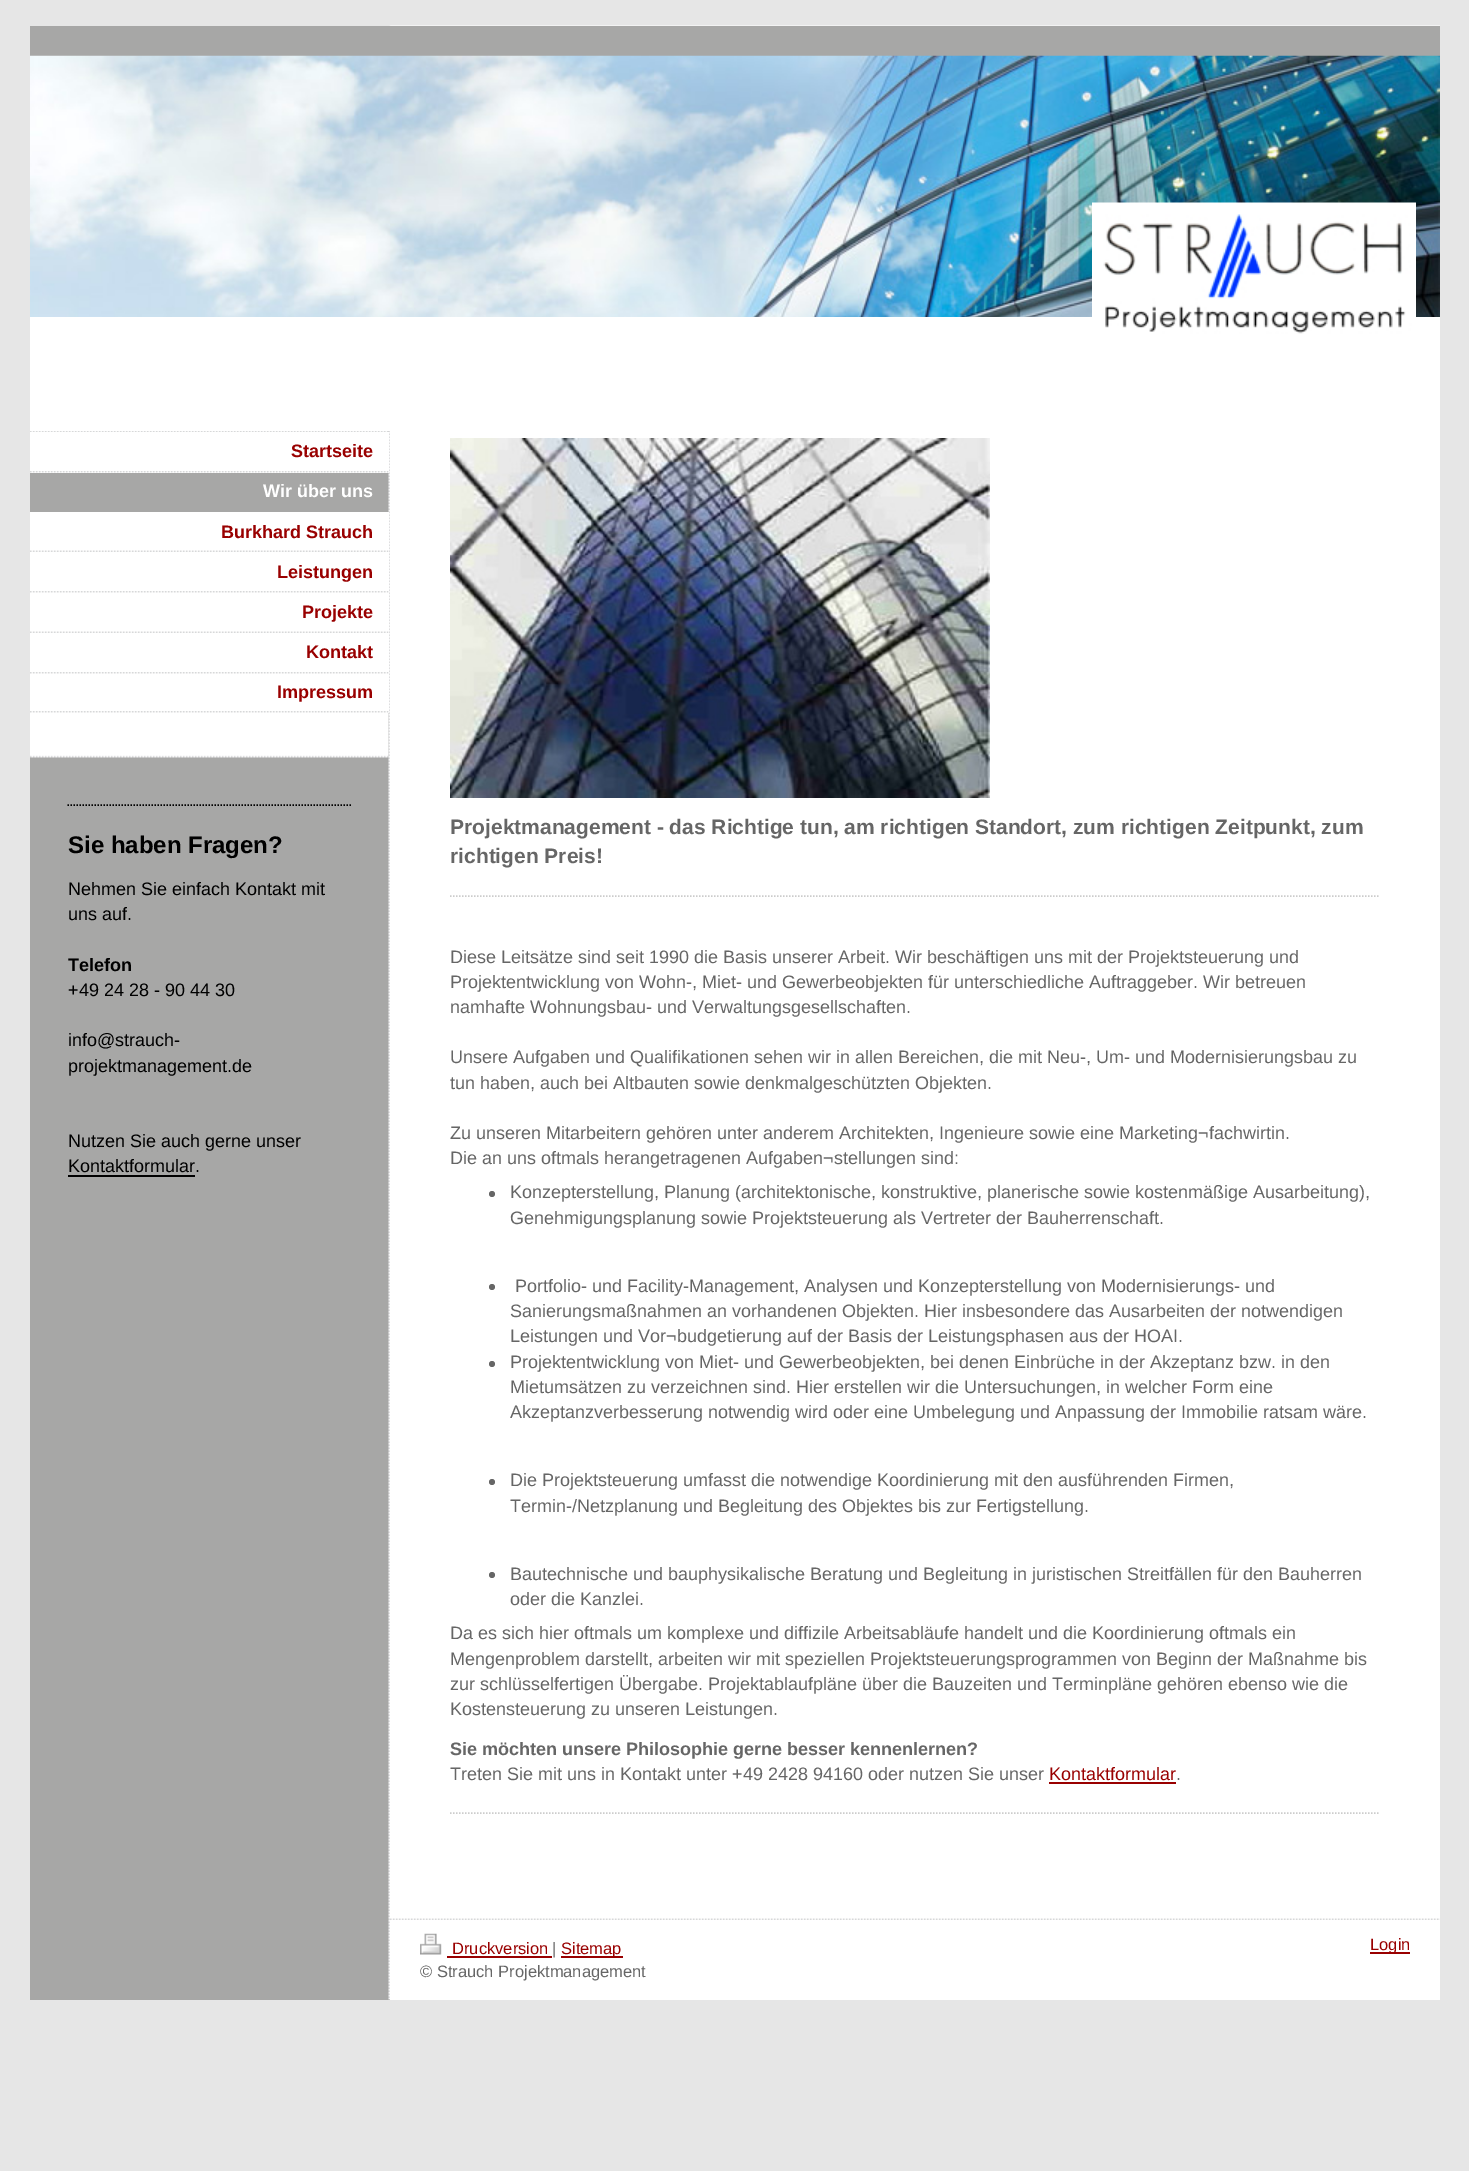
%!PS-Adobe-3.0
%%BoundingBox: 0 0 1469 2171
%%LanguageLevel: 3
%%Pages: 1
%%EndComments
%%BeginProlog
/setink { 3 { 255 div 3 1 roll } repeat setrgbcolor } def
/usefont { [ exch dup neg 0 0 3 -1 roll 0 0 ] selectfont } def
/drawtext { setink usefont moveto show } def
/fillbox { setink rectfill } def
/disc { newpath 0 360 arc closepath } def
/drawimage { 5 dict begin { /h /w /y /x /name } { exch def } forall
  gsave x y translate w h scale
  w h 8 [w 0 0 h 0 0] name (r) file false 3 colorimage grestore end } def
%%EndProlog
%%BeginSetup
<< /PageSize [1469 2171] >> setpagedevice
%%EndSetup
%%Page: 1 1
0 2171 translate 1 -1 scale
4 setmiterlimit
0 0 1469 2171 230 230 230 fillbox
30 431 360 1569 167 167 166 fillbox
(assets/img1.rgb) 388 25 1052 1975 drawimage
30 317 361 114 255 255 255 fillbox
30 26 1410 30 167 167 166 fillbox
(assets/img2.rgb) 30 55 1410 262 drawimage
(assets/img3.rgb) 1092 202 324 132 drawimage
(assets/img4.rgb) 30 713 359 45 drawimage
(assets/img5.rgb) 30 431 359 1 drawimage
30 432 359 41 255 255 255 fillbox
(assets/img6.rgb) 30 471 359 2 drawimage
(Startseite) 291 457 /LiberationSans-Bold 18 153 0 0 drawtext
(Wir über uns) 263 497 /LiberationSans-Bold 18 255 255 255 drawtext
30 512 359 201 255 255 255 fillbox
(assets/img7.rgb) 30 550 359 2 drawimage
(Burkhard Strauch) 221 538 /LiberationSans-Bold 18 153 0 0 drawtext
(assets/img6.rgb) 30 591 359 2 drawimage
(Leistungen) 277 578 /LiberationSans-Bold 18 153 0 0 drawtext
(assets/img7.rgb) 30 631 359 2 drawimage
(Projekte) 302 618 /LiberationSans-Bold 18 153 0 0 drawtext
(assets/img6.rgb) 30 672 359 2 drawimage
(Kontakt) 306 658 /LiberationSans-Bold 18 153 0 0 drawtext
(assets/img6.rgb) 30 711 359 2 drawimage
(Impressum) 277 698 /LiberationSans-Bold 18 153 0 0 drawtext
0 0 0 setink
1.5 setlinewidth
[1.5 1.5] 0 setdash
67.5 805 moveto 351 805 lineto stroke
(Sie haben Fragen?) 68 853 /LiberationSans-Bold 24 0 0 0 drawtext
(Nehmen Sie einfach Kontakt mit) 68 895 /LiberationSans-Regular 18 0 0 0 drawtext
(uns auf.) 68 920 /LiberationSans-Regular 18 0 0 0 drawtext
(Telefon) 68 971 /LiberationSans-Bold 18 0 0 0 drawtext
(+49 24 28 - 90 44 30) 68 996 /LiberationSans-Regular 18 0 0 0 drawtext
(info@strauch-) 68 1046 /LiberationSans-Regular 18 0 0 0 drawtext
(projektmanagement.de) 68 1072 /LiberationSans-Regular 18 0 0 0 drawtext
(Nutzen Sie auch gerne unser) 68 1147 /LiberationSans-Regular 18 0 0 0 drawtext
(Kontaktformular.) 68 1172 /LiberationSans-Regular 18 0 0 0 drawtext
68 1175 127 2 0 0 0 fillbox
390 431 1 1488 255 255 255 fillbox
(assets/img8.rgb) 450 438 540 360 drawimage
(Projektmanagement - das Richtige tun, am richtigen Standort, zum richtigen Zeitpunkt, zum) 450 834 /LiberationSans-Bold 21 102 102 102 drawtext
(richtigen Preis!) 450 863 /LiberationSans-Bold 21 102 102 102 drawtext
204 204 204 setink
450 896 moveto 1380 896 lineto stroke
(Diese Leitsätze sind seit 1990 die Basis unserer Arbeit. Wir beschäftigen uns mit der Projektsteuerung und) 450 963 /LiberationSans-Regular 18 102 102 102 drawtext
(Projektentwicklung von Wohn-, Miet- und Gewerbeobjekten für unterschiedliche Auftraggeber. Wir betreuen) 450 988 /LiberationSans-Regular 18 102 102 102 drawtext
(namhafte Wohnungsbau- und Verwaltungsgesellschaften.) 450 1013 /LiberationSans-Regular 18 102 102 102 drawtext
(Unsere Aufgaben und Qualifikationen sehen wir in allen Bereichen, die mit Neu-, Um- und Modernisierungsbau zu) 450 1063 /LiberationSans-Regular 18 102 102 102 drawtext
(tun haben, auch bei Altbauten sowie denkmalgeschützten Objekten.) 450 1089 /LiberationSans-Regular 18 102 102 102 drawtext
(Zu unseren Mitarbeitern gehören unter anderem Architekten, Ingenieure sowie eine Marketing¬fachwirtin.) 450 1139 /LiberationSans-Regular 18 102 102 102 drawtext
(Die an uns oftmals herangetragenen Aufgaben¬stellungen sind:) 450 1164 /LiberationSans-Regular 18 102 102 102 drawtext
492 1194 3 disc fill
(Konzepterstellung, Planung \(architektonische, konstruktive, planerische sowie kostenmäßige Ausarbeitung\),) 510 1198 /LiberationSans-Regular 18 102 102 102 drawtext
(Genehmigungsplanung sowie Projektsteuerung als Vertreter der Bauherrenschaft.) 510 1224 /LiberationSans-Regular 18 102 102 102 drawtext
492 1287 3 disc fill
(Portfolio- und Facility-Management, Analysen und Konzepterstellung von Modernisierungs- und) 515 1292 /LiberationSans-Regular 18 102 102 102 drawtext
(Sanierungsmaßnahmen an vorhandenen Objekten. Hier insbesondere das Ausarbeiten der notwendigen) 510 1317 /LiberationSans-Regular 18 102 102 102 drawtext
(Leistungen und Vor¬budgetierung auf der Basis der Leistungsphasen aus der HOAI.) 510 1342 /LiberationSans-Regular 18 102 102 102 drawtext
492 1364 3 disc fill
(Projektentwicklung von Miet- und Gewerbeobjekten, bei denen Einbrüche in der Akzeptanz bzw. in den) 510 1368 /LiberationSans-Regular 18 102 102 102 drawtext
(Mietumsätzen zu verzeichnen sind. Hier erstellen wir die Untersuchungen, in welcher Form eine) 510 1393 /LiberationSans-Regular 18 102 102 102 drawtext
(Akzeptanzverbesserung notwendig wird oder eine Umbelegung und Anpassung der Immobilie ratsam wäre.) 510 1418 /LiberationSans-Regular 18 102 102 102 drawtext
492 1482 3 disc fill
(Die Projektsteuerung umfasst die notwendige Koordinierung mit den ausführenden Firmen,) 510 1486 /LiberationSans-Regular 18 102 102 102 drawtext
(Termin-/Netzplanung und Begleitung des Objektes bis zur Fertigstellung.) 510 1512 /LiberationSans-Regular 18 102 102 102 drawtext
492 1575 3 disc fill
(Bautechnische und bauphysikalische Beratung und Begleitung in juristischen Streitfällen für den Bauherren) 510 1580 /LiberationSans-Regular 18 102 102 102 drawtext
(oder die Kanzlei.) 510 1605 /LiberationSans-Regular 18 102 102 102 drawtext
(Da es sich hier oftmals um komplexe und diffizile Arbeitsabläufe handelt und die Koordinierung oftmals ein) 450 1639 /LiberationSans-Regular 18 102 102 102 drawtext
(Mengenproblem darstellt, arbeiten wir mit speziellen Projektsteuerungsprogrammen von Beginn der Maßnahme bis) 450 1665 /LiberationSans-Regular 18 102 102 102 drawtext
(zur schlüsselfertigen Übergabe. Projektablaufpläne über die Bauzeiten und Terminpläne gehören ebenso wie die) 450 1690 /LiberationSans-Regular 18 102 102 102 drawtext
(Kostensteuerung zu unseren Leistungen.) 450 1715 /LiberationSans-Regular 18 102 102 102 drawtext
(Sie möchten unsere Philosophie gerne besser kennenlernen?) 450 1755 /LiberationSans-Bold 18 102 102 102 drawtext
(Treten Sie mit uns in Kontakt unter +49 2428 94160 oder nutzen Sie unser) 450 1780 /LiberationSans-Regular 18 102 102 102 drawtext
(Kontaktformular) 1049 1780 /LiberationSans-Regular 18 153 0 0 drawtext
1049 1782 127 2 153 0 0 fillbox
(.) 1176 1780 /LiberationSans-Regular 18 102 102 102 drawtext
204 204 204 setink
450 1813 moveto 1380 1813 lineto stroke
390 1921 1050 79 255 255 255 fillbox
(assets/img9.rgb) 390 1918 1050 2 drawimage
(assets/img10.rgb) 420 1933 22 22 drawimage
(Druckversion) 452 1954 /LiberationSans-Regular 16.5 153 0 0 drawtext
447 1956 105 2 153 0 0 fillbox
(|) 552 1954 /LiberationSans-Regular 16.5 102 102 102 drawtext
561 1956 62 2 153 0 0 fillbox
(Sitemap) 561 1954 /LiberationSans-Regular 16.5 153 0 0 drawtext
(© Strauch Projektmanagement) 420 1977 /LiberationSans-Regular 16.5 102 102 102 drawtext
1370 1952 40 2 153 0 0 fillbox
(Login) 1370 1950 /LiberationSans-Regular 16.5 153 0 0 drawtext
showpage
%%EOF
